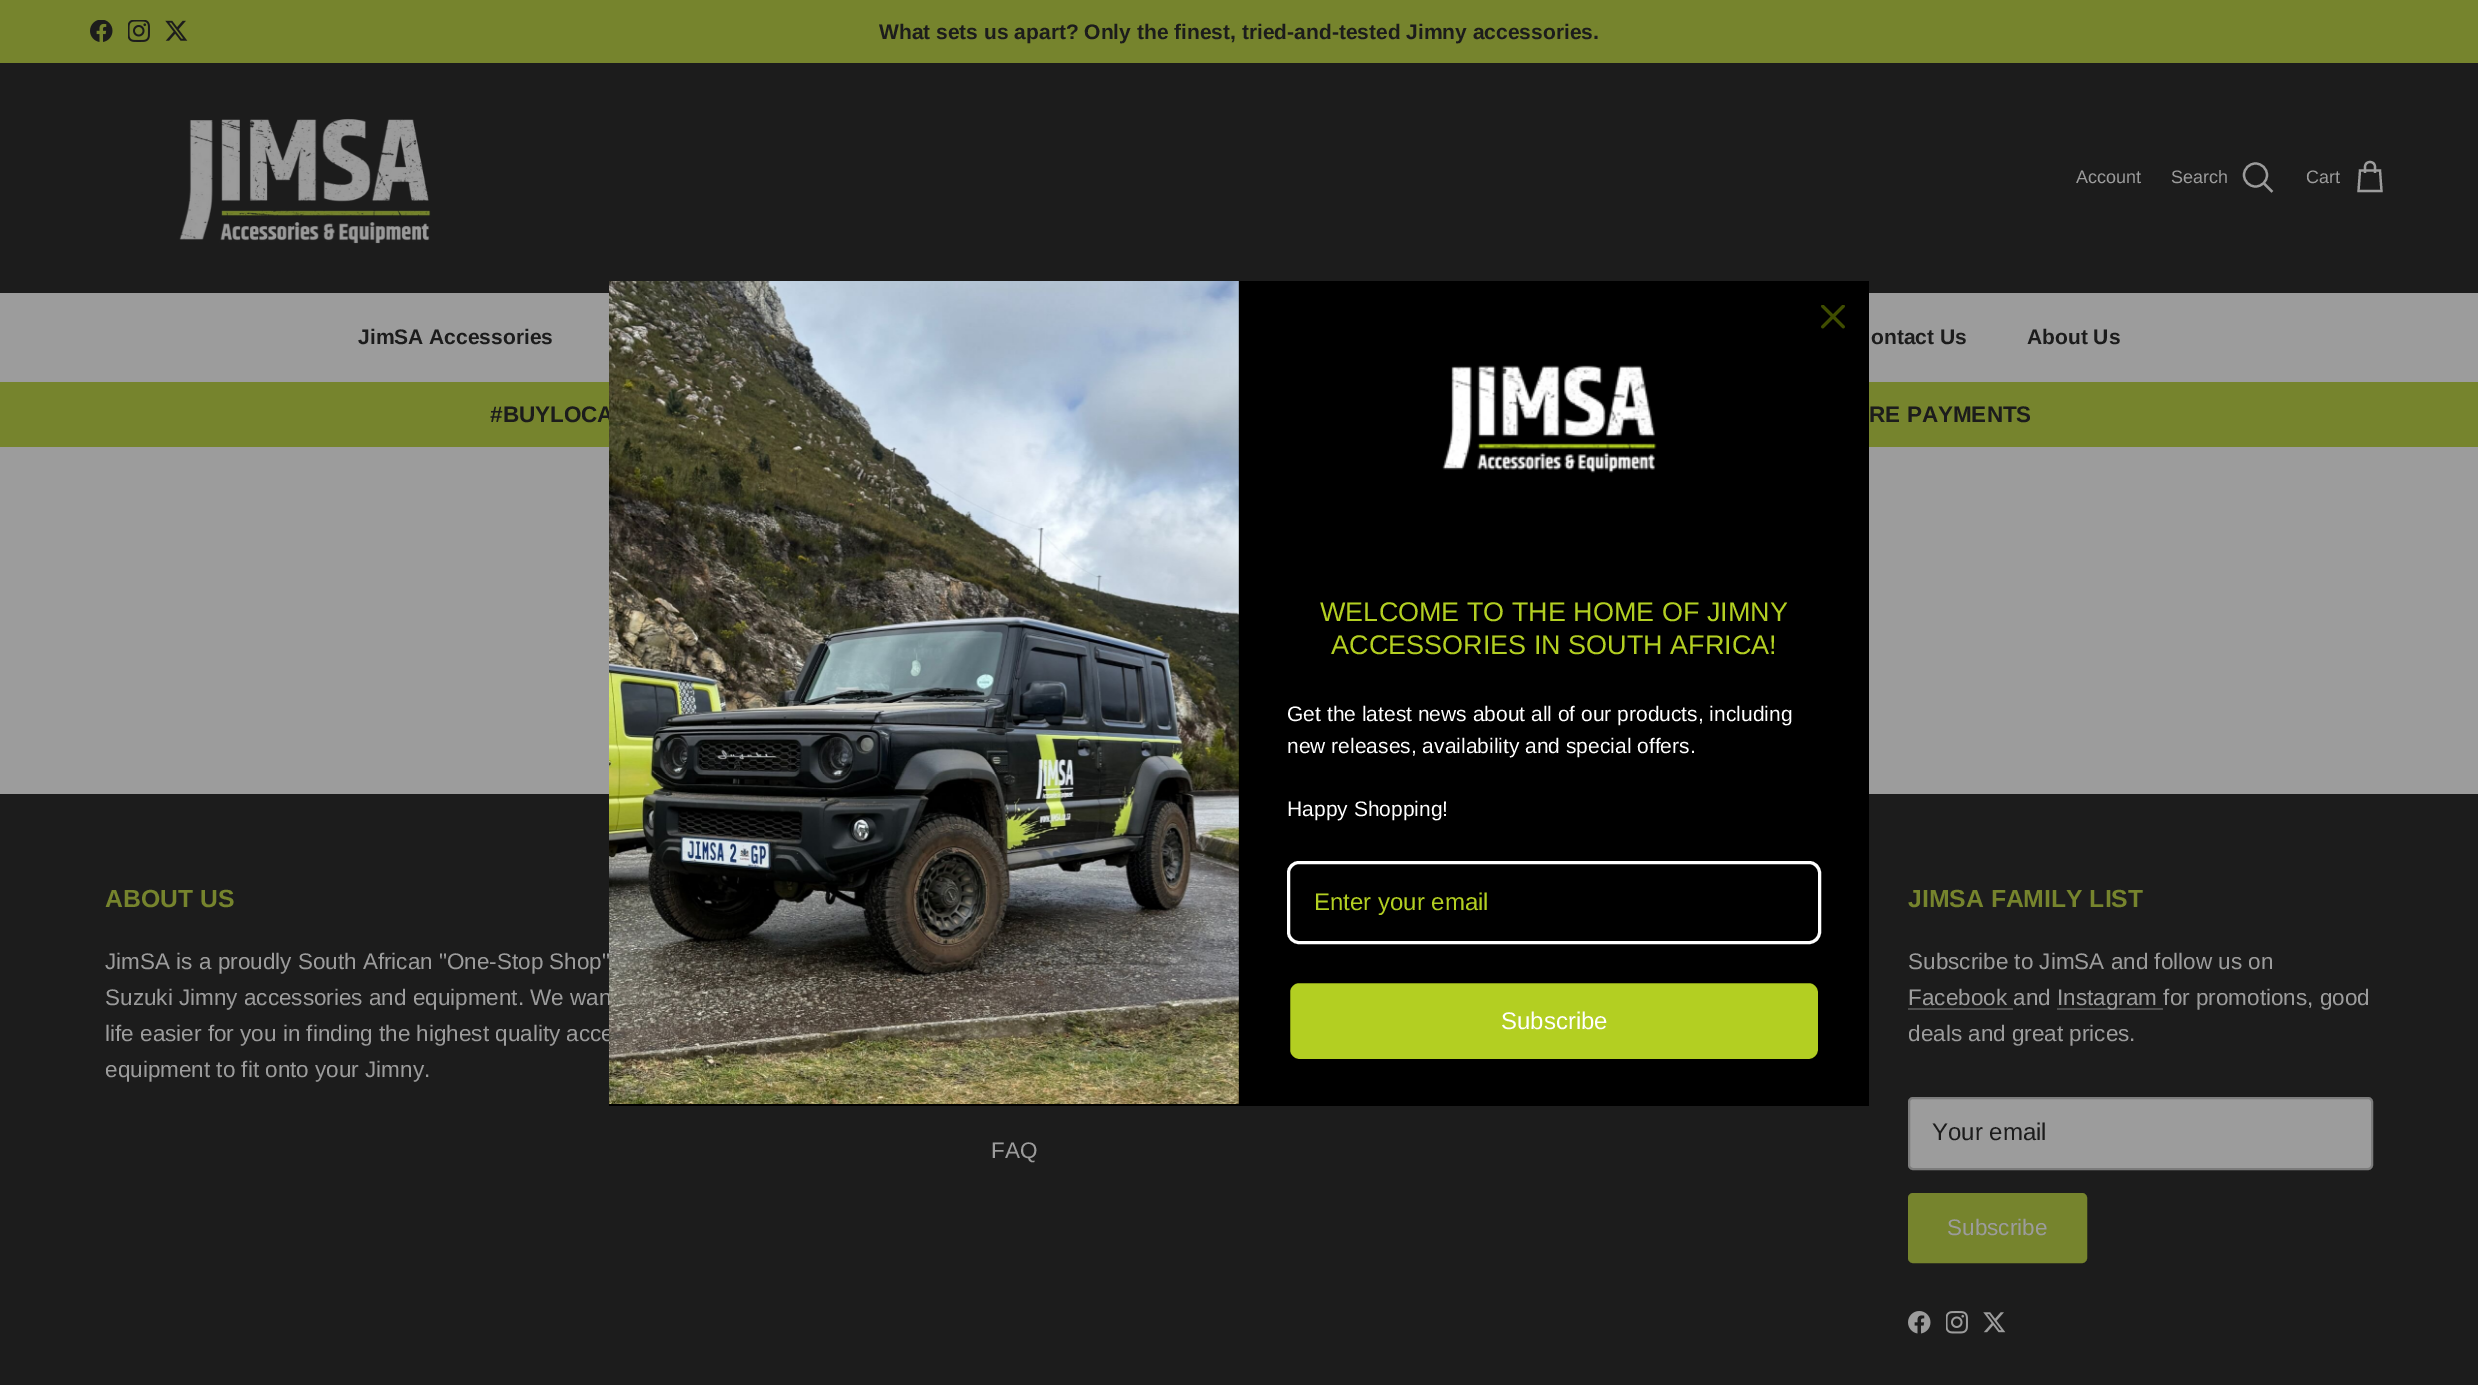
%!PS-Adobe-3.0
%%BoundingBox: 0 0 2478 1385
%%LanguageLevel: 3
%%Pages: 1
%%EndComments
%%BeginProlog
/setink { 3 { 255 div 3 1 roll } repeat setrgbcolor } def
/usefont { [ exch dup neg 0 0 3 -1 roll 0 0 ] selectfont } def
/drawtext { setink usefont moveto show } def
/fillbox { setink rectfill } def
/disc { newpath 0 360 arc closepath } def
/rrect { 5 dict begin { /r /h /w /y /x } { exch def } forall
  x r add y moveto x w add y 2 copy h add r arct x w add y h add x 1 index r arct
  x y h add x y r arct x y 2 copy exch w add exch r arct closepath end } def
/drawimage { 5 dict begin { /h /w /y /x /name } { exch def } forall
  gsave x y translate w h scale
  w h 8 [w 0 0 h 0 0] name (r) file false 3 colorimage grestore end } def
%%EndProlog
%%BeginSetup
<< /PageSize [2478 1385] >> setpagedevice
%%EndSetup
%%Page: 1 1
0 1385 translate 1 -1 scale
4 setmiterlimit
0 0 2478 1385 156 156 156 fillbox
0 0 2478 63 118 132 45 fillbox
(assets/img1.rgb) 90 20 23 22 drawimage
(assets/img2.rgb) 128 20 22 22 drawimage
(assets/img3.rgb) 165 20 23 21 drawimage
(What sets us apart? Only the finest, tried-and-tested Jimny accessories.) 879 39 /LiberationSans-Bold 21 28 28 28 drawtext
0 63 2478 230 28 28 28 fillbox
(assets/img4.rgb) 179 118 252 126 drawimage
(Account) 2076 183 /LiberationSans-Regular 18 156 156 156 drawtext
(Search) 2171 183 /LiberationSans-Regular 18 156 156 156 drawtext
2.2 setlinewidth
2255.5 175 11.5 disc stroke
2 setlinecap
2265 184.5 moveto 2271.5 191 lineto stroke
(Cart) 2306 183 /LiberationSans-Regular 18 156 156 156 drawtext
0 setlinecap
2375 173 moveto 2375 167 lineto 2375 164 2373 162 2370 162 curveto 2367 162 2365 164 2365 167 curveto 2365 173 lineto 2360 170.5 moveto 2380 170.5 lineto 2381.5 191 lineto 2358.5 191 lineto closepath stroke
(JimSA Accessories) 358 344 /LiberationSans-Bold 21 28 28 28 drawtext
(ontact Us) 1871 344 /LiberationSans-Bold 21 28 28 28 drawtext
(About Us) 2027 344 /LiberationSans-Bold 21 28 28 28 drawtext
0 382 2478 65 118 132 45 fillbox
(#BUYLOCA) 490 422 /LiberationSans-Bold 22.5 28 28 28 drawtext
(RE PAYMENTS) 1869 422 /LiberationSans-Bold 22.5 28 28 28 drawtext
0 794 2478 591 28 28 28 fillbox
1239 281 630 825 0 0 0 fillbox
(assets/img5.rgb) 1821 305 24 24 drawimage
(JimSA is a proudly South African "One-Stop Shop") 105 969 /LiberationSans-Regular 22.5 156 156 156 drawtext
(Suzuki Jimny accessories and equipment. We wan) 105 1005 /LiberationSans-Regular 22.5 156 156 156 drawtext
(life easier for you in finding the highest quality acce) 105 1041 /LiberationSans-Regular 22.5 156 156 156 drawtext
609 281 630 825 0 0 0 fillbox
(assets/img6.rgb) 609 281 630 823 drawimage
(assets/img7.rgb) 1442 365 215 108 drawimage
(WELCOME TO THE HOME OF JIMNY) 1320 621 /LiberationSans-Regular 27 179 207 34 drawtext
(ACCESSORIES IN SOUTH AFRICA!) 1331 654 /LiberationSans-Regular 27 179 207 34 drawtext
(Get the latest news about all of our products, including) 1287 721 /LiberationSans-Regular 21 255 255 255 drawtext
(new releases, availability and special offers.) 1287 753 /LiberationSans-Regular 21 255 255 255 drawtext
(Happy Shopping!) 1287 816 /LiberationSans-Regular 21 255 255 255 drawtext
3 setlinewidth
1288.5 862.5 531 80 10.5 rrect stroke
(Enter your email) 1314 910 /LiberationSans-Regular 24 179 207 34 drawtext
1288.5 981.5 531 79 10.5 rrect gsave fill grestore
0 0 0 setink
stroke
(Subscribe) 1501 1029 /LiberationSans-Regular 24 255 255 255 drawtext
(ABOUT US) 105 907 /LiberationSans-Bold 24.75 118 132 45 drawtext
(equipment to fit onto your Jimny.) 105 1077 /LiberationSans-Regular 22.5 156 156 156 drawtext
(FAQ) 991 1158 /LiberationSans-Regular 22.5 156 156 156 drawtext
(JIMSA FAMILY LIST) 1908 907 /LiberationSans-Bold 24.75 118 132 45 drawtext
(Subscribe to JimSA and follow us on) 1908 969 /LiberationSans-Regular 22.5 156 156 156 drawtext
(Facebook and) 1908 1005 /LiberationSans-Regular 22.5 156 156 156 drawtext
1908 1008 105 2 79 79 79 fillbox
2057 1008 106 2 79 79 79 fillbox
(Instagram for promotions, good) 2057 1005 /LiberationSans-Regular 22.5 156 156 156 drawtext
(deals and great prices.) 1908 1041 /LiberationSans-Regular 22.5 156 156 156 drawtext
1909 1098 463 71 4 rrect gsave fill grestore
124 124 124 setink
2 setlinewidth
stroke
(Your email) 1932 1140 /LiberationSans-Regular 24 28 28 28 drawtext
118 132 45 setink
1909 1194 177 68 4 rrect gsave fill grestore
stroke
(Subscribe) 1947 1235 /LiberationSans-Regular 22.5 156 156 156 drawtext
(assets/img8.rgb) 1908 1311 23 23 drawimage
(assets/img9.rgb) 1946 1311 22 23 drawimage
(assets/img10.rgb) 1983 1312 23 21 drawimage
showpage
%%EOF
